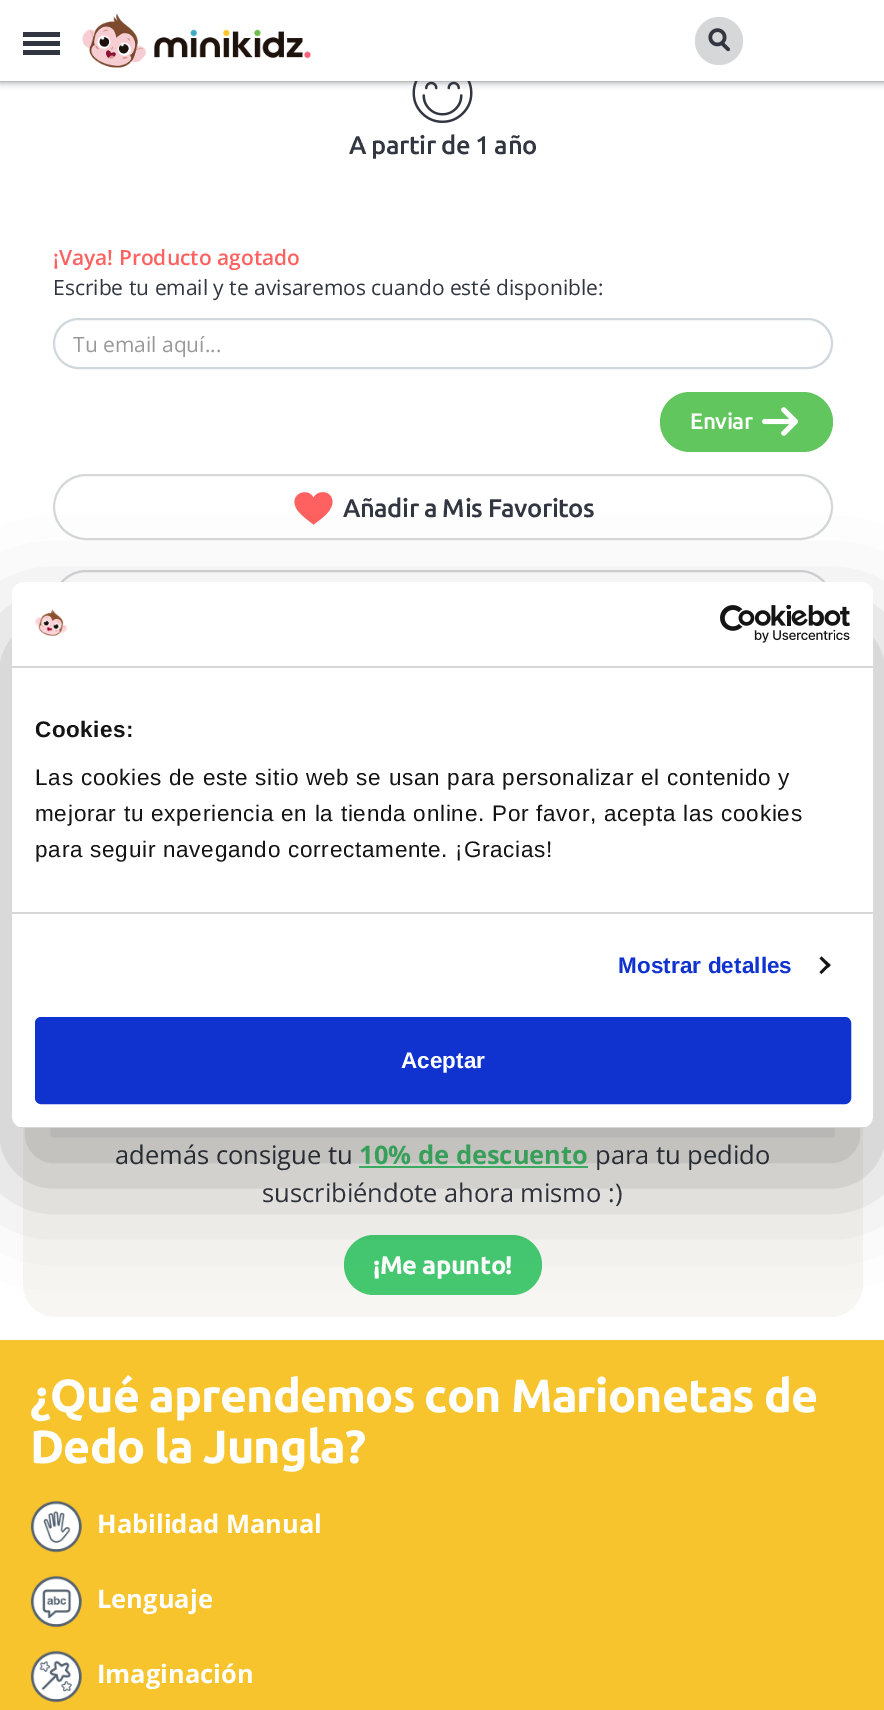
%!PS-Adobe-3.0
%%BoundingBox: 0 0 884 1710
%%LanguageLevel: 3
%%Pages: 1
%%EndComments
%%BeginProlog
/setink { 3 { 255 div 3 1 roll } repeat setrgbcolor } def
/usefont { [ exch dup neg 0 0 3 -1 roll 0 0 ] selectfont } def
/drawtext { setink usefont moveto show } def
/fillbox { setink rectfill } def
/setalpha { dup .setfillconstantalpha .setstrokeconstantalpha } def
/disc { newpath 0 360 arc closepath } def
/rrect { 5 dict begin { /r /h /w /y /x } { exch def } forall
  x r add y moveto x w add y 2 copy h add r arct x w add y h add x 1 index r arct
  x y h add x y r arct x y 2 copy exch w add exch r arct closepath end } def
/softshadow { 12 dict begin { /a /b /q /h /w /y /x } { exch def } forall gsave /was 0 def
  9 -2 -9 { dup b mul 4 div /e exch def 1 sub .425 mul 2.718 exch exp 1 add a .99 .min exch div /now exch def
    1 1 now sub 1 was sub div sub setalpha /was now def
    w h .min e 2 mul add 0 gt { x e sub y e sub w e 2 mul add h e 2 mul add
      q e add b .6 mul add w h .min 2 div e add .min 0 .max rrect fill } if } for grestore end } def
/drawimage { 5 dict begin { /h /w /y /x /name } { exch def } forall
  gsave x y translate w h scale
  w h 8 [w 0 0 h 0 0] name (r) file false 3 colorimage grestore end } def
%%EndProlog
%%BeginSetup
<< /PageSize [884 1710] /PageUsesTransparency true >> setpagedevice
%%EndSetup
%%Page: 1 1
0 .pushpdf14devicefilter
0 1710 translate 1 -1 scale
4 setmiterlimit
0 0 884 1710 255 255 255 fillbox
(assets/img3.rgb) 412 81 61 42 drawimage
49 54 65 setink
0 0 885 81 0 4 0.7 softshadow
0 0 884 81 255 255 255 fillbox
23 41 37 5 49 54 65 fillbox
23 32 37 5 49 54 65 fillbox
23 50 37 5 49 54 65 fillbox
(assets/img1.rgb) 82 13 229 55 drawimage
214 215 217 setink
719 41 24 disc fill
(assets/img2.rgb) 708 28 22 24 drawimage
/Ubuntu-Medium 25.5 usefont
49 54 65 setink
349 154 moveto -0.5 0 (A partir de 1 año) ashow
(¡Vaya! Producto agotado) 53 265 /OpenSans-SemiBold 21 255 96 96 drawtext
(Escribe tu email y te avisaremos cuando esté disponible:) 53 295 /OpenSans-Regular 21 49 54 65 drawtext
208 216 221 setink
2 setlinewidth
54 319 778 49 24.5 rrect stroke
(Tu email aquí...) 73 352 /OpenSans-Regular 21 153 153 153 drawtext
96 198 93 setink
660 392 173 60 30 rrect fill
/Ubuntu-Medium 22.5 usefont
255 255 255 setink
690 429 moveto -0.5 0 (Enviar) ashow
(assets/img4.rgb) 762 407 37 29 drawimage
214 215 217 setink
54 475 778 64 32 rrect stroke
255 96 96 setink
327 493 moveto 322 491 315.5 493 313.5 498 curveto 308 486 287.5 494.5 297 509.5 curveto 301 515.5 308 520 313.5 524.5 curveto 320 519.5 335 510 332 499 curveto 331.5 496.5 329.5 494.5 327 493 curveto closepath fill
/Ubuntu-Medium 25.5 usefont
49 54 65 setink
343 517 moveto -0.5 0 (Añadir a Mis Favoritos) ashow
214 215 217 setink
54 571 778 64 32 rrect stroke
248 246 242 setink
23 689 840 628 33 rrect fill
(además consigue tu) 115 1164 /OpenSans-Regular 25.5 49 54 65 drawtext
(10% de descuento) 359 1164 /OpenSans-Bold 25.5 70 201 113 drawtext
359 1166 229 2 70 201 113 fillbox
(para tu pedido) 595 1164 /OpenSans-Regular 25.5 49 54 65 drawtext
(suscribiéndote ahora mismo :\)) 262 1202 /OpenSans-Regular 25.5 49 54 65 drawtext
70 201 113 setink
344 1235 198 60 30 rrect fill
/Ubuntu-Bold 25.5 usefont
255 255 255 setink
373 1274 moveto -0.5 0 (¡Me apunto!) ashow
0 1340 884 370 247 196 46 fillbox
/Ubuntu-Bold 46.5 usefont
255 255 255 setink
30 1412 moveto -0.9 0 (¿Qué aprendemos con Marionetas de) ashow
30 1463 moveto -0.9 0 (Dedo la Jungla?) ashow
(assets/img5.rgb) 30 1500 52 53 drawimage
(Habilidad Manual) 97 1533 /OpenSans-Bold 25.5 255 255 255 drawtext
(assets/img6.rgb) 30 1575 52 53 drawimage
(Lenguaje) 97 1608 /OpenSans-Bold 25.5 255 255 255 drawtext
(assets/img7.rgb) 30 1650 52 53 drawimage
(Imaginación) 97 1683 /OpenSans-Bold 25.5 255 255 255 drawtext
0 0 0 setink
12 630 861 546 12 51 0.3 softshadow
255 255 255 setink
12 582 861 546 12 rrect fill
12 666 861 2 214 214 214 fillbox
(assets/img8.rgb) 35 609 33 28 drawimage
(assets/img9.rgb) 720 605 130 38 drawimage
12 912 861 2 214 214 214 fillbox
/LiberationSans-Bold 22.5 usefont
20 20 20 setink
35 737 moveto 0.5 0 (Cookies:) ashow
/LiberationSans-Regular 22.5 usefont
35 785 moveto 0.75 0 (Las cookies de este sitio web se usan para personalizar el contenido y) ashow
35 821 moveto 0.75 0 (mejorar tu experiencia en la tienda online. Por favor, acepta las cookies) ashow
35 857 moveto 0.75 0 (para seguir navegando correctamente. ¡Gracias!) ashow
/LiberationSans-Bold 22.5 usefont
16 50 207 setink
618 973 moveto 0.1 0 (Mostrar detalles) ashow
20 20 20 setink
821.5 956.5 moveto 830.5 965 lineto 828.5 967.5 lineto 819.5 958.5 lineto closepath fill
828.5 963 moveto 830.5 965 lineto 821.5 974 lineto 819.5 972 lineto closepath fill
gsave
12 582 861 546 12 rrect clip newpath
12 1127 861 1 214 214 214 fillbox
grestore
16 50 207 setink
36.5 1018.5 813 84 4.5 rrect gsave fill grestore
3 setlinewidth
stroke
(Aceptar) 401 1068 /LiberationSans-Bold 22.5 255 255 255 drawtext
.poppdf14devicefilter showpage
%%EOF
